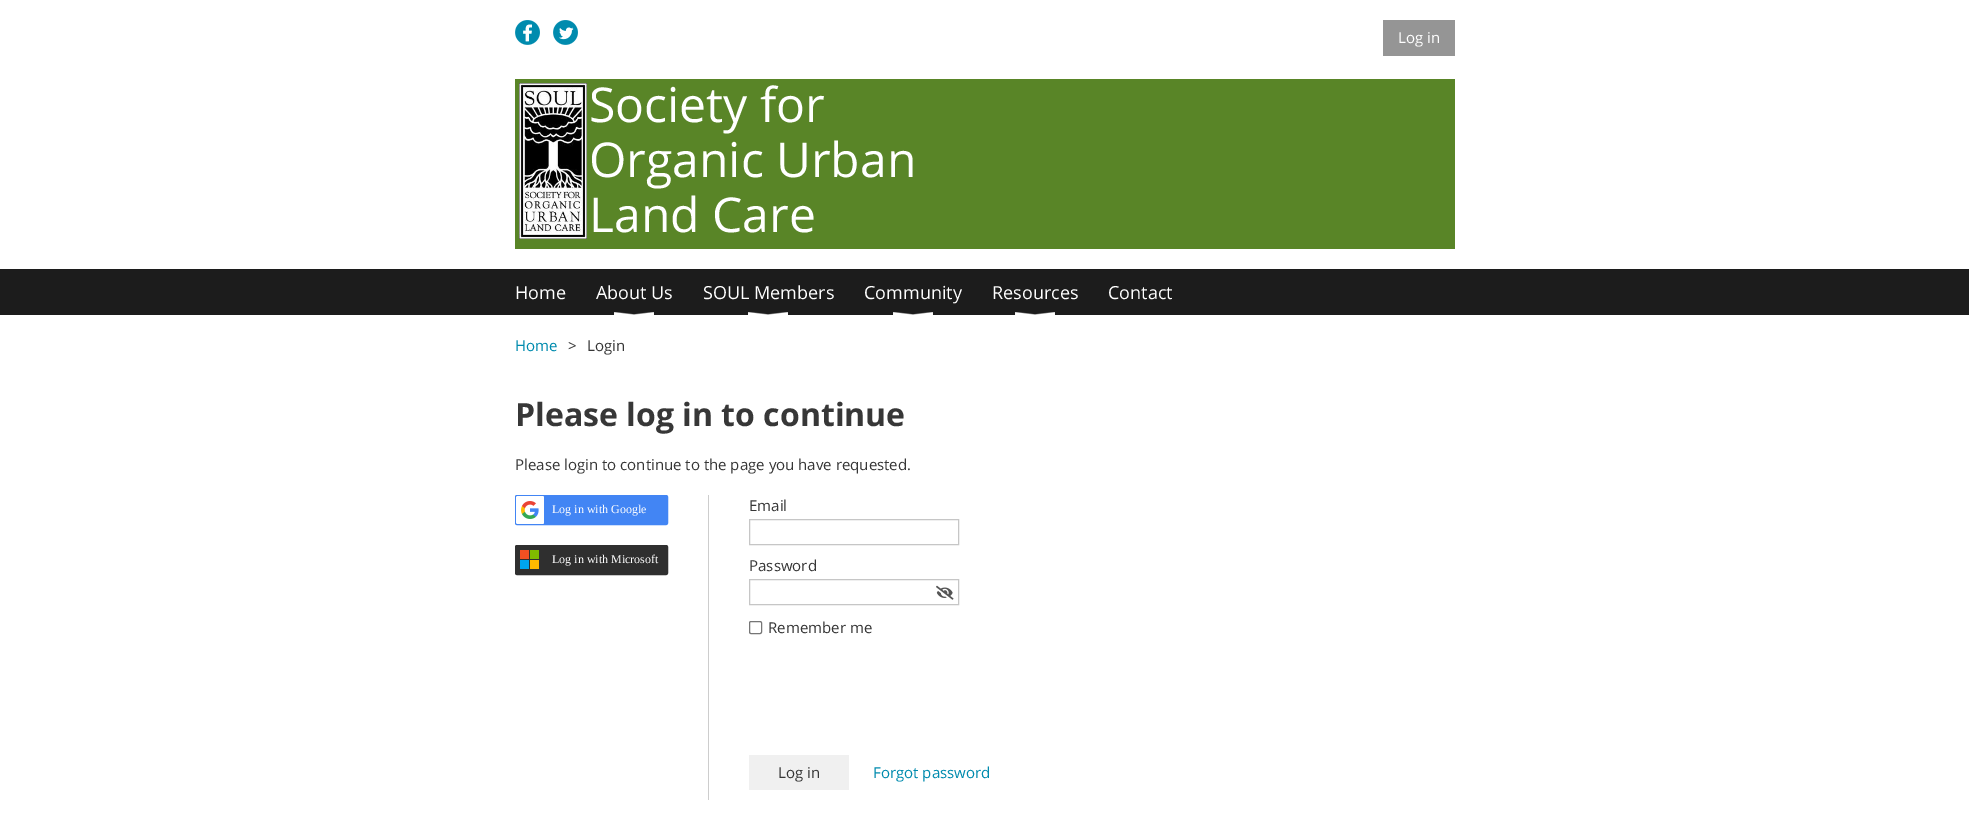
%!PS-Adobe-3.0
%%BoundingBox: 0 0 1969 832
%%LanguageLevel: 3
%%Pages: 1
%%EndComments
%%BeginProlog
/setink { 3 { 255 div 3 1 roll } repeat setrgbcolor } def
/usefont { [ exch dup neg 0 0 3 -1 roll 0 0 ] selectfont } def
/drawtext { setink usefont moveto show } def
/fillbox { setink rectfill } def
/rrect { 5 dict begin { /r /h /w /y /x } { exch def } forall
  x r add y moveto x w add y 2 copy h add r arct x w add y h add x 1 index r arct
  x y h add x y r arct x y 2 copy exch w add exch r arct closepath end } def
/drawimage { 5 dict begin { /h /w /y /x /name } { exch def } forall
  gsave x y translate w h scale
  w h 8 [w 0 0 h 0 0] name (r) file false 3 colorimage grestore end } def
%%EndProlog
%%BeginSetup
<< /PageSize [1969 832] >> setpagedevice
%%EndSetup
%%Page: 1 1
0 832 translate 1 -1 scale
4 setmiterlimit
0 0 1969 832 255 255 255 fillbox
(assets/img1.rgb) 515 20 25 25 drawimage
(assets/img2.rgb) 553 20 25 25 drawimage
1383 20 72 36 149 149 149 fillbox
(Log in) 1398 43 /OpenSans-Regular 15 255 255 255 drawtext
515 79 940 170 89 133 39 fillbox
(assets/img3.rgb) 519 83 68 156 drawimage
(Society for) 589 122 /OpenSans-Regular 48 255 255 255 drawtext
(Organic Urban) 589 177 /OpenSans-Regular 48 255 255 255 drawtext
(Land Care) 589 232 /OpenSans-Regular 48 255 255 255 drawtext
0 269 1969 46 28 28 28 fillbox
(Home) 515 299 /OpenSans-Regular 18 255 255 255 drawtext
(About Us) 596 299 /OpenSans-Regular 18 255 255 255 drawtext
(assets/img4.rgb) 614 312 40 3 drawimage
(SOUL Members) 703 299 /OpenSans-Regular 18 255 255 255 drawtext
(assets/img4.rgb) 748 312 40 3 drawimage
(Community) 864 299 /OpenSans-Regular 18 255 255 255 drawtext
(assets/img4.rgb) 893 312 40 3 drawimage
(Resources) 992 299 /OpenSans-Regular 18 255 255 255 drawtext
(assets/img4.rgb) 1015 312 40 3 drawimage
(Contact) 1108 299 /OpenSans-Regular 18 255 255 255 drawtext
(Home) 515 351 /OpenSans-Regular 15 0 139 174 drawtext
(>) 568 351 /OpenSans-Regular 15 55 55 55 drawtext
(Login) 587 351 /OpenSans-Regular 15 55 55 55 drawtext
(Please log in to continue) 515 426 /OpenSans-Bold 32 55 55 55 drawtext
(Please login to continue to the page you have requested.) 515 470 /OpenSans-Regular 15 55 55 55 drawtext
708 495 1 305 205 205 205 fillbox
66 133 244 setink
515.5 495.5 152 29 1.5 rrect gsave fill grestore
stroke
(assets/img5.rgb) 516 496 28 28 drawimage
(Log in with Google) 552 513 /LiberationSerif-Regular 12 255 255 255 drawtext
47 47 47 setink
515.5 545.5 152 29 1.5 rrect gsave fill grestore
stroke
520 550 9 9 242 80 34 fillbox
520 560 9 9 0 164 239 fillbox
530 550 9 9 127 186 0 fillbox
530 560 9 9 255 185 0 fillbox
(Log in with Microsoft) 552 563 /LiberationSerif-Regular 12 255 255 255 drawtext
(Email) 749 511 /OpenSans-Regular 15 55 55 55 drawtext
198 198 198 setink
749.5 519.5 209 25 rectstroke
(Password) 749 571 /OpenSans-Regular 15 55 55 55 drawtext
198 198 198 setink
749.5 579.5 209 25 rectstroke
(assets/img6.rgb) 936 585 18 15 drawimage
118 118 118 setink
749.5 621.5 12 12 1.5 rrect stroke
(Remember me) 768 633 /OpenSans-Regular 15 55 55 55 drawtext
749 755 100 35 240 240 240 fillbox
(Log in) 778 778 /OpenSans-Regular 15 55 55 55 drawtext
(Forgot password) 873 778 /OpenSans-Regular 15 0 139 174 drawtext
showpage
%%EOF
